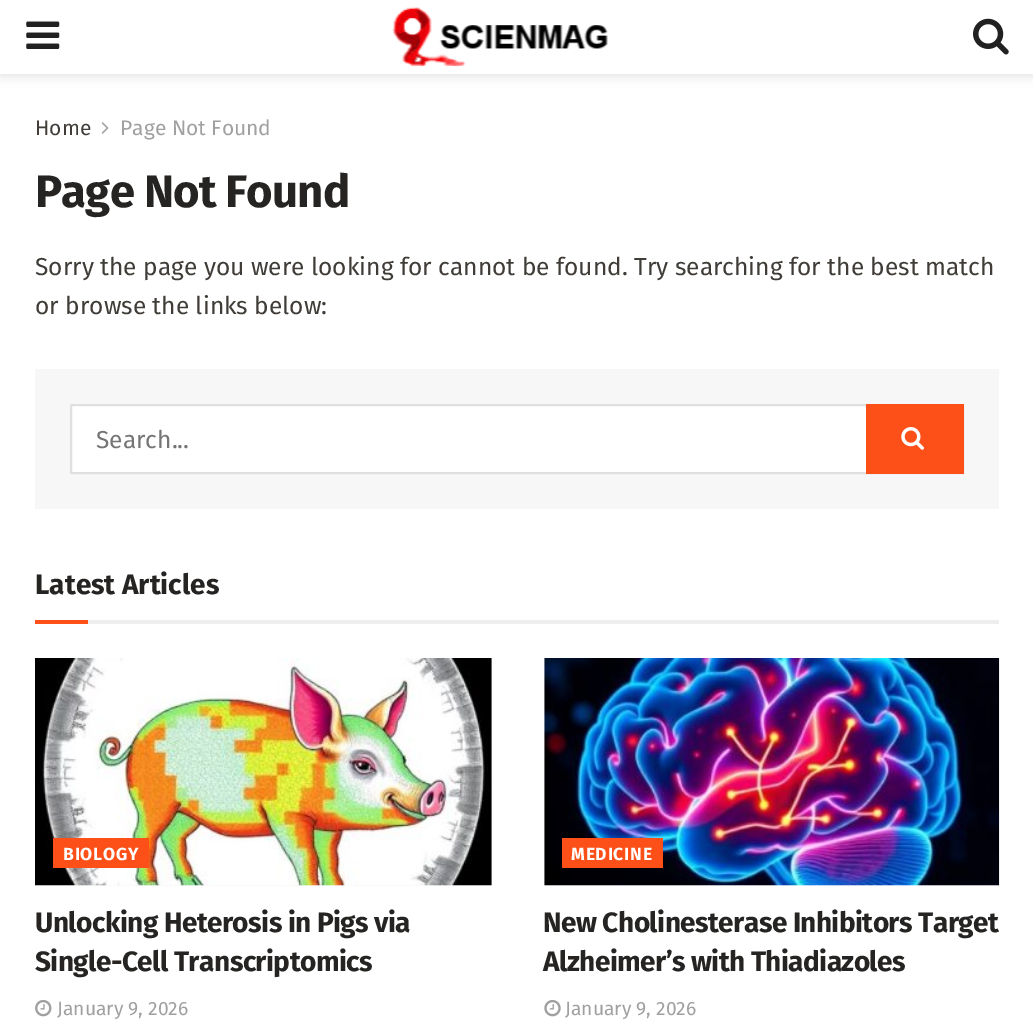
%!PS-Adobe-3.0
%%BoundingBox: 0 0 1033 1030
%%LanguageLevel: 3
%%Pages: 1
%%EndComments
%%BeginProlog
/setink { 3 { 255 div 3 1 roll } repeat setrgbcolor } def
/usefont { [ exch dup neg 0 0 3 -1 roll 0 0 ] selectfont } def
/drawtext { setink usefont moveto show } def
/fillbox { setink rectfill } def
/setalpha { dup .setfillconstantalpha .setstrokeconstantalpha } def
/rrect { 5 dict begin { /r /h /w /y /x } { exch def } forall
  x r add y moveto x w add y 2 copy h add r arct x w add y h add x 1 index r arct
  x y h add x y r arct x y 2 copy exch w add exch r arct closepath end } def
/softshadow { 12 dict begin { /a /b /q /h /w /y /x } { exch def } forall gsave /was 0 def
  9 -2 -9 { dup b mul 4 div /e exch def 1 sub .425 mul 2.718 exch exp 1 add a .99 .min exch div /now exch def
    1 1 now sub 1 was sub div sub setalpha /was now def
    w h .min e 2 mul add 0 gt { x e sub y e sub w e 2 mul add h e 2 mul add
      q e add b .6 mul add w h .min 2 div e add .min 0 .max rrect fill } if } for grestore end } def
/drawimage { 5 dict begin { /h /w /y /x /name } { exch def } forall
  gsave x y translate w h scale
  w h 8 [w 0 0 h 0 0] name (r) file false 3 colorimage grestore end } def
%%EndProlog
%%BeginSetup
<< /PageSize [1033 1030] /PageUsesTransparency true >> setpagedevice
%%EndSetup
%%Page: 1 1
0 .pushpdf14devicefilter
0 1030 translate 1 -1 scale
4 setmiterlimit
0 0 1033 1030 255 255 255 fillbox
0 0 0 setink
0 4 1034 73 0 5 0.1 softshadow
0 0 1033 74 255 255 255 fillbox
(assets/img1.rgb) 26 21 34 28 drawimage
(assets/img2.rgb) 392 7 216 60 drawimage
(assets/img3.rgb) 973 18 36 37 drawimage
(Home) 35 135 /FiraSans-Regular 21 64 61 57 drawtext
(assets/img4.rgb) 101 122 8 12 drawimage
(Page Not Found) 120 135 /FiraSans-Regular 21 160 160 160 drawtext
/FiraSans-Bold 45.5 usefont
37 36 34 setink
35 207 moveto -0.9 0 (Page Not Found) ashow
(Sorry the page you were looking for cannot be found. Try searching for the best match) 35 275 /FiraSans-Regular 24.5 64 61 57 drawtext
(or browse the links below:) 35 314 /FiraSans-Regular 24.5 64 61 57 drawtext
35 369 964 140 247 247 247 fillbox
72 406 794 66 255 255 255 fillbox
224 224 224 setink
2 setlinewidth
71 405 892 68 rectstroke
(Search...) 96 448 /FiraSans-Regular 24.5 117 117 117 drawtext
866 404 98 70 253 79 24 fillbox
(assets/img5.rgb) 901 427 23 23 drawimage
88 620 911 4 238 238 238 fillbox
(Latest Articles) 35 594 /FiraSans-Bold 28 37 36 34 drawtext
35 620 53 4 253 79 24 fillbox
35 658 457 228 247 247 247 fillbox
(assets/img7.rgb) 491 658 1 227 drawimage
(assets/img6.rgb) 35 658 457 228 drawimage
53 838 96 30 253 79 24 fillbox
/FiraSans-Bold 17.5 usefont
255 255 255 setink
63 860 moveto 0.75 0 (BIOLOGY) ashow
/FiraSans-Bold 28 usefont
37 36 34 setink
35 932 moveto -0.55 0 (Unlocking Heterosis in Pigs via) ashow
35 971 moveto -0.55 0 (Single-Cell Transcriptomics) ashow
(assets/img8.rgb) 35 999 17 18 drawimage
(January 9, 2026) 57 1015 /FiraSans-Regular 19.25 160 160 160 drawtext
544 658 455 228 247 247 247 fillbox
(assets/img9.rgb) 544 658 456 228 drawimage
562 838 101 30 253 79 24 fillbox
/FiraSans-Bold 17.5 usefont
255 255 255 setink
571 860 moveto 0.75 0 (MEDICINE) ashow
/FiraSans-Bold 28 usefont
37 36 34 setink
543 932 moveto -0.55 0 (New Cholinesterase Inhibitors Target) ashow
543 971 moveto -0.55 0 (Alzheimer’s with Thiadiazoles) ashow
(assets/img10.rgb) 544 999 17 18 drawimage
(January 9, 2026) 565 1015 /FiraSans-Regular 19.25 160 160 160 drawtext
.poppdf14devicefilter showpage
%%EOF
